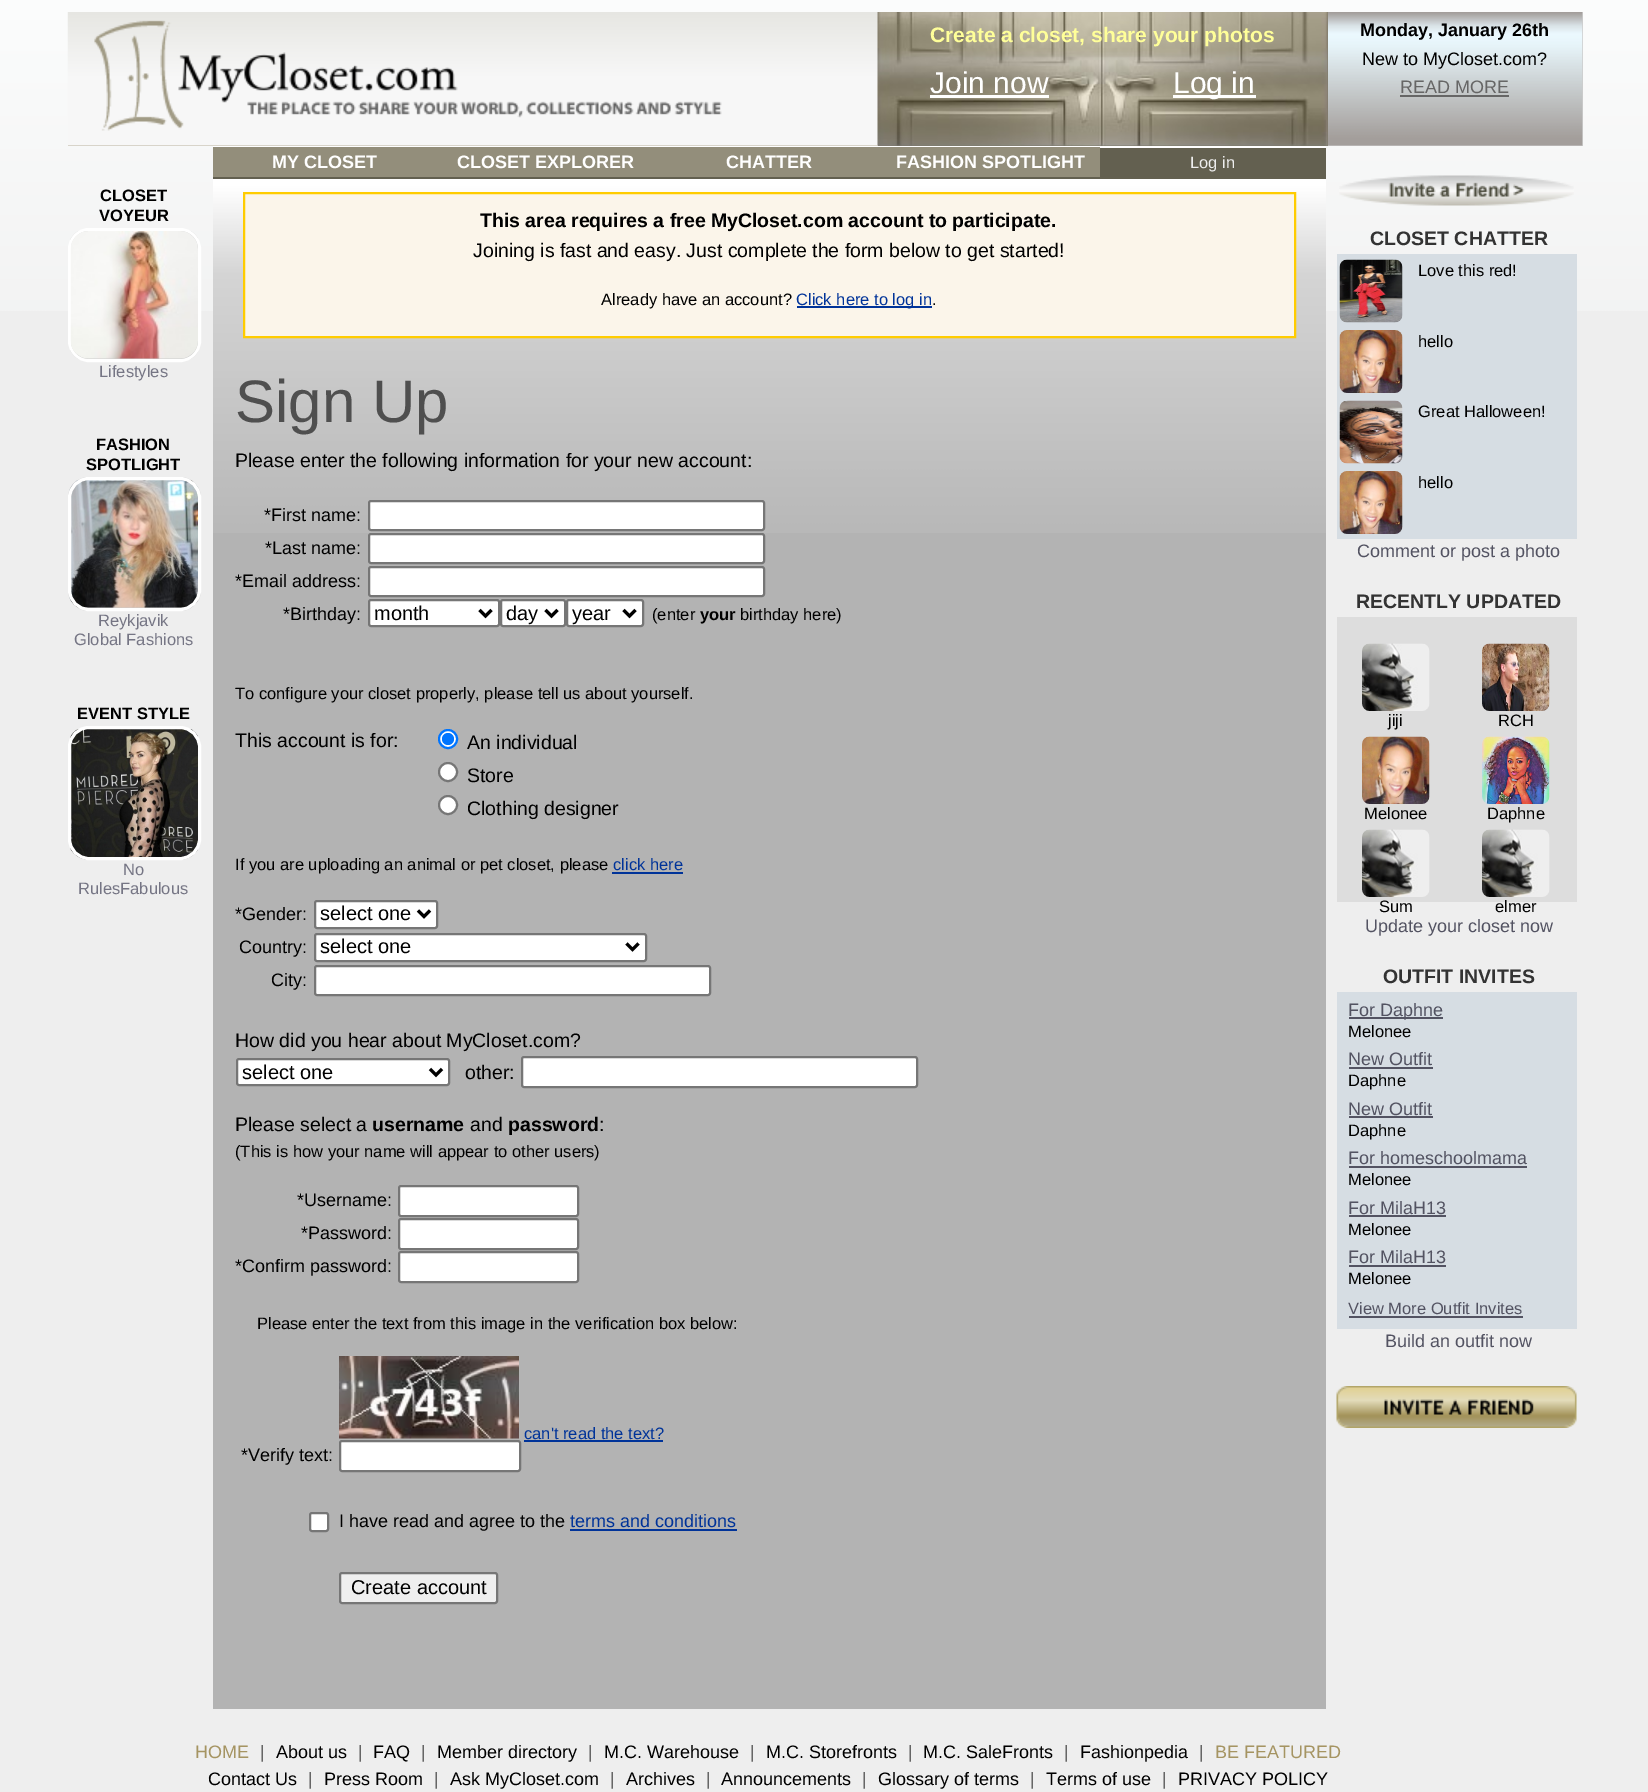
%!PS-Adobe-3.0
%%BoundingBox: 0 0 1648 1792
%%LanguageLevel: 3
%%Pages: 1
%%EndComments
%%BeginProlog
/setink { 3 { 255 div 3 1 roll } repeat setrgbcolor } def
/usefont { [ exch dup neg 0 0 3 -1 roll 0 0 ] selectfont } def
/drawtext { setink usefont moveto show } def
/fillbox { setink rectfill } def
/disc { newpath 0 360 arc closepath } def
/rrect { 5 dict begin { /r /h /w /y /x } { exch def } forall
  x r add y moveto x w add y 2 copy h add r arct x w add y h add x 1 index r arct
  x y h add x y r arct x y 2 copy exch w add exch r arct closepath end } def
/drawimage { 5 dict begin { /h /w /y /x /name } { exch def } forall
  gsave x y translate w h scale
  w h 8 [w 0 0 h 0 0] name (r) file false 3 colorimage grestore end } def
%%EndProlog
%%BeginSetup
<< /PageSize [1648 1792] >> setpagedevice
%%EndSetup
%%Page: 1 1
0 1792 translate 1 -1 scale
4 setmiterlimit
0 0 1648 1792 238 238 238 fillbox
(assets/img1.rgb) 0 0 1648 311 drawimage
68 145 810 1 184 176 156 fillbox
(assets/img2.rgb) 67 12 811 134 drawimage
(assets/img3.rgb) 94 20 628 111 drawimage
878 12 450 134 125 120 105 fillbox
(assets/img4.rgb) 877 12 451 134 drawimage
(Create a closet, share your photos) 930 42 /LiberationSans-Bold 21 255 255 153 drawtext
(Join now) 930 93 /LiberationSans-Regular 30 255 255 255 drawtext
930 95 119 3 255 255 255 fillbox
1173 95 83 3 255 255 255 fillbox
(Log in) 1173 93 /LiberationSans-Regular 30 255 255 255 drawtext
1328 12 255 134 204 204 204 fillbox
(assets/img5.rgb) 1328 12 255 134 drawimage
(Monday, January 26th) 1360 36 /LiberationSans-Bold 18 0 0 0 drawtext
(New to MyCloset.com?) 1362 65 /LiberationSans-Regular 18 0 0 0 drawtext
(READ MORE) 1400 93 /LiberationSans-Regular 18 102 102 102 drawtext
1400 95 109 2 102 102 102 fillbox
(CLOSET) 100 201 /LiberationSans-Bold 16.5 0 0 0 drawtext
(VOYEUR) 99 221 /LiberationSans-Bold 16.5 0 0 0 drawtext
204 204 204 setink
69.5 229.5 130 131 19.5 rrect gsave fill grestore
255 255 255 setink
3 setlinewidth
stroke
(assets/img6.rgb) 70 231 128 128 drawimage
(Lifestyles) 99 377 /LiberationSans-Regular 16.5 117 117 132 drawtext
(FASHION) 96 450 /LiberationSans-Bold 16.5 0 0 0 drawtext
(SPOTLIGHT) 86 470 /LiberationSans-Bold 16.5 0 0 0 drawtext
204 204 204 setink
68 477 133 134 21 rrect fill
(assets/img7.rgb) 69 480 129 128 drawimage
255 255 255 setink
69.5 478.5 130 131 19.5 rrect stroke
(Reykjavik) 98 626 /LiberationSans-Regular 16.5 117 117 132 drawtext
(Global Fashions) 74 645 /LiberationSans-Regular 16.5 117 117 132 drawtext
(EVENT STYLE) 77 719 /LiberationSans-Bold 16.5 0 0 0 drawtext
(assets/img8.rgb) 70 729 128 131 drawimage
255 255 255 setink
69.5 727.5 130 131 19.5 rrect stroke
(No) 123 875 /LiberationSans-Regular 16.5 117 117 132 drawtext
(RulesFabulous) 78 894 /LiberationSans-Regular 16.5 117 117 132 drawtext
213 148 1113 31 99 96 80 fillbox
213 146 1113 2 255 255 255 fillbox
213 179 1113 1 255 255 255 fillbox
(Log in) 1190 168 /LiberationSans-Regular 16.5 238 238 238 drawtext
213 533 1113 1176 179 179 179 fillbox
(assets/img9.rgb) 213 180 1113 353 drawimage
251 245 234 setink
244 193 moveto 1295 193 lineto 1295 337 lineto 244 337 lineto closepath gsave fill grestore
255 204 0 setink
2 setlinewidth
stroke
(This area requires a free MyCloset.com account to participate.) 480 227 /LiberationSans-Bold 19.5 0 0 0 drawtext
(Joining is fast and easy. Just complete the form below to get started!) 473 257 /LiberationSans-Regular 19.5 0 0 0 drawtext
(Already have an account?) 601 305 /LiberationSans-Regular 16.5 0 0 0 drawtext
797 306 135 2 0 51 153 fillbox
(Click here to log in) 796 305 /LiberationSans-Regular 16.5 0 51 153 drawtext
(.) 932 305 /LiberationSans-Regular 16.5 0 0 0 drawtext
(Sign Up) 235 422 /LiberationSans-Regular 60 79 79 79 drawtext
(Please enter the following information for your new account:) 235 467 /LiberationSans-Regular 19.5 0 0 0 drawtext
(*First name:) 264 521 /LiberationSans-Regular 18 0 0 0 drawtext
255 255 255 setink
369 501 395 29 2 rrect gsave fill grestore
118 118 118 setink
stroke
(*Last name:) 265 554 /LiberationSans-Regular 18 0 0 0 drawtext
255 255 255 setink
369 534 395 29 2 rrect gsave fill grestore
118 118 118 setink
stroke
(*Email address:) 235 587 /LiberationSans-Regular 18 0 0 0 drawtext
255 255 255 setink
369 567 395 29 2 rrect gsave fill grestore
118 118 118 setink
stroke
(*Birthday:) 283 620 /LiberationSans-Regular 18 0 0 0 drawtext
255 255 255 setink
369 600 130 26 2 rrect gsave fill grestore
118 118 118 setink
stroke
0 0 0 setink
3 setlinewidth
479.5 610 moveto 485.5 616 lineto 491.5 610 lineto stroke
(month) 374 620 /LiberationSans-Regular 20 0 0 0 drawtext
255 255 255 setink
501 600 64 26 2 rrect gsave fill grestore
118 118 118 setink
2 setlinewidth
stroke
0 0 0 setink
3 setlinewidth
545.5 610 moveto 551.5 616 lineto 557.5 610 lineto stroke
(day) 506 620 /LiberationSans-Regular 20 0 0 0 drawtext
255 255 255 setink
567 600 76 26 2 rrect gsave fill grestore
118 118 118 setink
2 setlinewidth
stroke
0 0 0 setink
3 setlinewidth
623.5 610 moveto 629.5 616 lineto 635.5 610 lineto stroke
(year) 572 620 /LiberationSans-Regular 20 0 0 0 drawtext
(\(enter) 652 620 /LiberationSans-Regular 16.5 0 0 0 drawtext
(your) 700 620 /LiberationSans-Bold 16.5 0 0 0 drawtext
(birthday here\)) 740 620 /LiberationSans-Regular 16.5 0 0 0 drawtext
(To configure your closet properly, please tell us about yourself.) 235 699 /LiberationSans-Regular 16.5 0 0 0 drawtext
(This account is for:) 235 747 /LiberationSans-Regular 19.5 0 0 0 drawtext
255 255 255 setink
448 739 9 disc gsave fill grestore
0 117 255 setink
2 setlinewidth
stroke
448 739 6 disc fill
(An individual) 467 749 /LiberationSans-Regular 19.5 0 0 0 drawtext
255 255 255 setink
448 772 9 disc gsave fill grestore
118 118 118 setink
stroke
(Store) 467 782 /LiberationSans-Regular 19.5 0 0 0 drawtext
255 255 255 setink
448 805 9 disc gsave fill grestore
118 118 118 setink
stroke
(Clothing designer) 467 815 /LiberationSans-Regular 19.5 0 0 0 drawtext
(If you are uploading an animal or pet closet, please) 235 870 /LiberationSans-Regular 16.5 0 0 0 drawtext
(click here) 613 870 /LiberationSans-Regular 16.5 0 51 153 drawtext
612 872 71 2 0 51 153 fillbox
(*Gender:) 235 920 /LiberationSans-Regular 18 0 0 0 drawtext
255 255 255 setink
315 901 122 27 2 rrect gsave fill grestore
118 118 118 setink
stroke
0 0 0 setink
3 setlinewidth
418 910.5 moveto 424 916.5 lineto 430 910.5 lineto stroke
(select one) 320 920 /LiberationSans-Regular 20 0 0 0 drawtext
(Country:) 239 953 /LiberationSans-Regular 18 0 0 0 drawtext
255 255 255 setink
315 934 331 27 2 rrect gsave fill grestore
118 118 118 setink
2 setlinewidth
stroke
0 0 0 setink
3 setlinewidth
626.5 943.5 moveto 632.5 949.5 lineto 638.5 943.5 lineto stroke
(select one) 320 953 /LiberationSans-Regular 20 0 0 0 drawtext
(City:) 271 986 /LiberationSans-Regular 18 0 0 0 drawtext
255 255 255 setink
315 966 395 29 2 rrect gsave fill grestore
118 118 118 setink
2 setlinewidth
stroke
(How did you hear about MyCloset.com?) 235 1047 /LiberationSans-Regular 19.5 0 0 0 drawtext
255 255 255 setink
237 1059 212 26 2 rrect gsave fill grestore
118 118 118 setink
stroke
0 0 0 setink
3 setlinewidth
430 1069 moveto 436 1075 lineto 442 1069 lineto stroke
(select one) 242 1079 /LiberationSans-Regular 20 0 0 0 drawtext
(other:) 465 1079 /LiberationSans-Regular 19.5 0 0 0 drawtext
255 255 255 setink
522 1057 395 30 2 rrect gsave fill grestore
118 118 118 setink
2 setlinewidth
stroke
(Please select a) 235 1131 /LiberationSans-Regular 19.5 0 0 0 drawtext
(username) 372 1131 /LiberationSans-Bold 19.5 0 0 0 drawtext
(and) 470 1131 /LiberationSans-Regular 19.5 0 0 0 drawtext
(password) 508 1131 /LiberationSans-Bold 19.5 0 0 0 drawtext
(:) 599 1131 /LiberationSans-Regular 19.5 0 0 0 drawtext
(\(This is how your name will appear to other users\)) 235 1157 /LiberationSans-Regular 16.5 0 0 0 drawtext
(*Username:) 297 1206 /LiberationSans-Regular 18 0 0 0 drawtext
255 255 255 setink
399 1186 179 30 2 rrect gsave fill grestore
118 118 118 setink
stroke
(*Password:) 301 1239 /LiberationSans-Regular 18 0 0 0 drawtext
255 255 255 setink
399 1219 179 30 2 rrect gsave fill grestore
118 118 118 setink
stroke
(*Confirm password:) 235 1272 /LiberationSans-Regular 18 0 0 0 drawtext
255 255 255 setink
399 1252 179 30 2 rrect gsave fill grestore
118 118 118 setink
stroke
(Please enter the text from this image in the verification box below:) 257 1329 /LiberationSans-Regular 16.5 0 0 0 drawtext
(assets/img10.rgb) 339 1356 180 83 drawimage
(can't read the text?) 524 1439 /LiberationSans-Regular 16.5 0 51 153 drawtext
524 1440 139 2 0 51 153 fillbox
(*Verify text:) 241 1461 /LiberationSans-Regular 18 0 0 0 drawtext
255 255 255 setink
340 1441 180 30 2 rrect gsave fill grestore
118 118 118 setink
stroke
255 255 255 setink
310 1513 18 18 2 rrect gsave fill grestore
118 118 118 setink
stroke
(I have read and agree to the) 339 1527 /LiberationSans-Regular 18 0 0 0 drawtext
(terms and conditions) 570 1527 /LiberationSans-Regular 18 0 51 153 drawtext
570 1529 167 2 0 51 153 fillbox
239 239 239 setink
340 1573 157 30 2 rrect gsave fill grestore
118 118 118 setink
stroke
(Create account) 351 1594 /LiberationSans-Regular 20 0 0 0 drawtext
(assets/img11.rgb) 1339 175 235 31 drawimage
(CLOSET CHATTER) 1370 245 /LiberationSans-Bold 19.5 51 51 51 drawtext
1337 254 240 285 214 221 227 fillbox
(assets/img12.rgb) 1339 259 64 64 drawimage
(Love this red!) 1418 276 /LiberationSans-Regular 16.5 0 0 0 drawtext
(assets/img13.rgb) 1339 330 64 63 drawimage
(hello) 1418 347 /LiberationSans-Regular 16.5 0 0 0 drawtext
(assets/img14.rgb) 1339 400 64 64 drawimage
(Great Halloween!) 1418 417 /LiberationSans-Regular 16.5 0 0 0 drawtext
(assets/img15.rgb) 1339 471 64 63 drawimage
(hello) 1418 488 /LiberationSans-Regular 16.5 0 0 0 drawtext
(Comment or post a photo) 1357 557 /LiberationSans-Regular 18 83 83 98 drawtext
(RECENTLY UPDATED) 1356 608 /LiberationSans-Bold 19.5 51 51 51 drawtext
1337 617 240 285 221 221 221 fillbox
(assets/img16.rgb) 1362 643 68 68 drawimage
(jiji) 1388 726 /LiberationSans-Regular 16.5 0 0 0 drawtext
(assets/img17.rgb) 1482 643 68 68 drawimage
(RCH) 1498 726 /LiberationSans-Regular 16.5 0 0 0 drawtext
(assets/img18.rgb) 1362 736 68 68 drawimage
(Melonee) 1364 819 /LiberationSans-Regular 16.5 0 0 0 drawtext
(assets/img19.rgb) 1482 736 68 68 drawimage
(Daphne) 1487 819 /LiberationSans-Regular 16.5 0 0 0 drawtext
(assets/img16.rgb) 1362 829 68 68 drawimage
(Sum) 1379 912 /LiberationSans-Regular 16.5 0 0 0 drawtext
(assets/img16.rgb) 1482 829 68 68 drawimage
(elmer) 1495 912 /LiberationSans-Regular 16.5 0 0 0 drawtext
(Update your closet now) 1365 932 /LiberationSans-Regular 18 83 83 98 drawtext
(OUTFIT INVITES) 1383 983 /LiberationSans-Bold 19.5 51 51 51 drawtext
1337 992 240 337 214 221 227 fillbox
1349 1017 94 2 83 83 98 fillbox
(For Daphne) 1348 1016 /LiberationSans-Regular 18 83 83 98 drawtext
(Melonee) 1348 1037 /LiberationSans-Regular 16.5 0 0 0 drawtext
(New Outfit) 1348 1065 /LiberationSans-Regular 18 83 83 98 drawtext
1349 1067 84 2 83 83 98 fillbox
(Daphne) 1348 1086 /LiberationSans-Regular 16.5 0 0 0 drawtext
(New Outfit) 1348 1115 /LiberationSans-Regular 18 83 83 98 drawtext
1349 1116 84 2 83 83 98 fillbox
(Daphne) 1348 1136 /LiberationSans-Regular 16.5 0 0 0 drawtext
(For homeschoolmama) 1348 1164 /LiberationSans-Regular 18 83 83 98 drawtext
1349 1166 178 2 83 83 98 fillbox
(Melonee) 1348 1185 /LiberationSans-Regular 16.5 0 0 0 drawtext
(For MilaH13) 1348 1214 /LiberationSans-Regular 18 83 83 98 drawtext
1349 1215 97 2 83 83 98 fillbox
(Melonee) 1348 1235 /LiberationSans-Regular 16.5 0 0 0 drawtext
(For MilaH13) 1348 1263 /LiberationSans-Regular 18 83 83 98 drawtext
1349 1265 97 2 83 83 98 fillbox
(Melonee) 1348 1284 /LiberationSans-Regular 16.5 0 0 0 drawtext
(View More Outfit Invites) 1348 1314 /LiberationSans-Regular 16.5 83 83 98 drawtext
1349 1316 174 2 83 83 98 fillbox
(Build an outfit now) 1385 1347 /LiberationSans-Regular 18 83 83 98 drawtext
(assets/img20.rgb) 1336 1386 241 42 drawimage
213 147 887 30 147 142 123 fillbox
(MY CLOSET) 272 168 /LiberationSans-Bold 18 255 255 255 drawtext
(CLOSET EXPLORER) 457 168 /LiberationSans-Bold 18 255 255 255 drawtext
(CHATTER) 726 168 /LiberationSans-Bold 18 255 255 255 drawtext
(FASHION SPOTLIGHT) 896 168 /LiberationSans-Bold 18 255 255 255 drawtext
(HOME) 195 1758 /LiberationSans-Regular 18 165 148 98 drawtext
(|) 260 1758 /LiberationSans-Regular 18 102 102 102 drawtext
(About us) 276 1758 /LiberationSans-Regular 18 0 0 0 drawtext
(|) 358 1758 /LiberationSans-Regular 18 102 102 102 drawtext
(FAQ) 373 1758 /LiberationSans-Regular 18 0 0 0 drawtext
(|) 421 1758 /LiberationSans-Regular 18 102 102 102 drawtext
(Member directory) 437 1758 /LiberationSans-Regular 18 0 0 0 drawtext
(|) 588 1758 /LiberationSans-Regular 18 102 102 102 drawtext
(M.C. Warehouse) 604 1758 /LiberationSans-Regular 18 0 0 0 drawtext
(|) 750 1758 /LiberationSans-Regular 18 102 102 102 drawtext
(M.C. Storefronts) 766 1758 /LiberationSans-Regular 18 0 0 0 drawtext
(|) 908 1758 /LiberationSans-Regular 18 102 102 102 drawtext
(M.C. SaleFronts) 923 1758 /LiberationSans-Regular 18 0 0 0 drawtext
(|) 1064 1758 /LiberationSans-Regular 18 102 102 102 drawtext
(Fashionpedia) 1080 1758 /LiberationSans-Regular 18 0 0 0 drawtext
(|) 1199 1758 /LiberationSans-Regular 18 102 102 102 drawtext
(BE FEATURED) 1215 1758 /LiberationSans-Regular 18 165 148 98 drawtext
(Contact Us) 208 1785 /LiberationSans-Regular 18 0 0 0 drawtext
(|) 308 1785 /LiberationSans-Regular 18 102 102 102 drawtext
(Press Room) 324 1785 /LiberationSans-Regular 18 0 0 0 drawtext
(|) 434 1785 /LiberationSans-Regular 18 102 102 102 drawtext
(Ask MyCloset.com) 450 1785 /LiberationSans-Regular 18 0 0 0 drawtext
(|) 610 1785 /LiberationSans-Regular 18 102 102 102 drawtext
(Archives) 626 1785 /LiberationSans-Regular 18 0 0 0 drawtext
(|) 706 1785 /LiberationSans-Regular 18 102 102 102 drawtext
(Announcements) 721 1785 /LiberationSans-Regular 18 0 0 0 drawtext
(|) 862 1785 /LiberationSans-Regular 18 102 102 102 drawtext
(Glossary of terms) 878 1785 /LiberationSans-Regular 18 0 0 0 drawtext
(|) 1030 1785 /LiberationSans-Regular 18 102 102 102 drawtext
(Terms of use) 1046 1785 /LiberationSans-Regular 18 0 0 0 drawtext
(|) 1162 1785 /LiberationSans-Regular 18 102 102 102 drawtext
(PRIVACY POLICY) 1178 1785 /LiberationSans-Regular 18 0 0 0 drawtext
showpage
%%EOF
